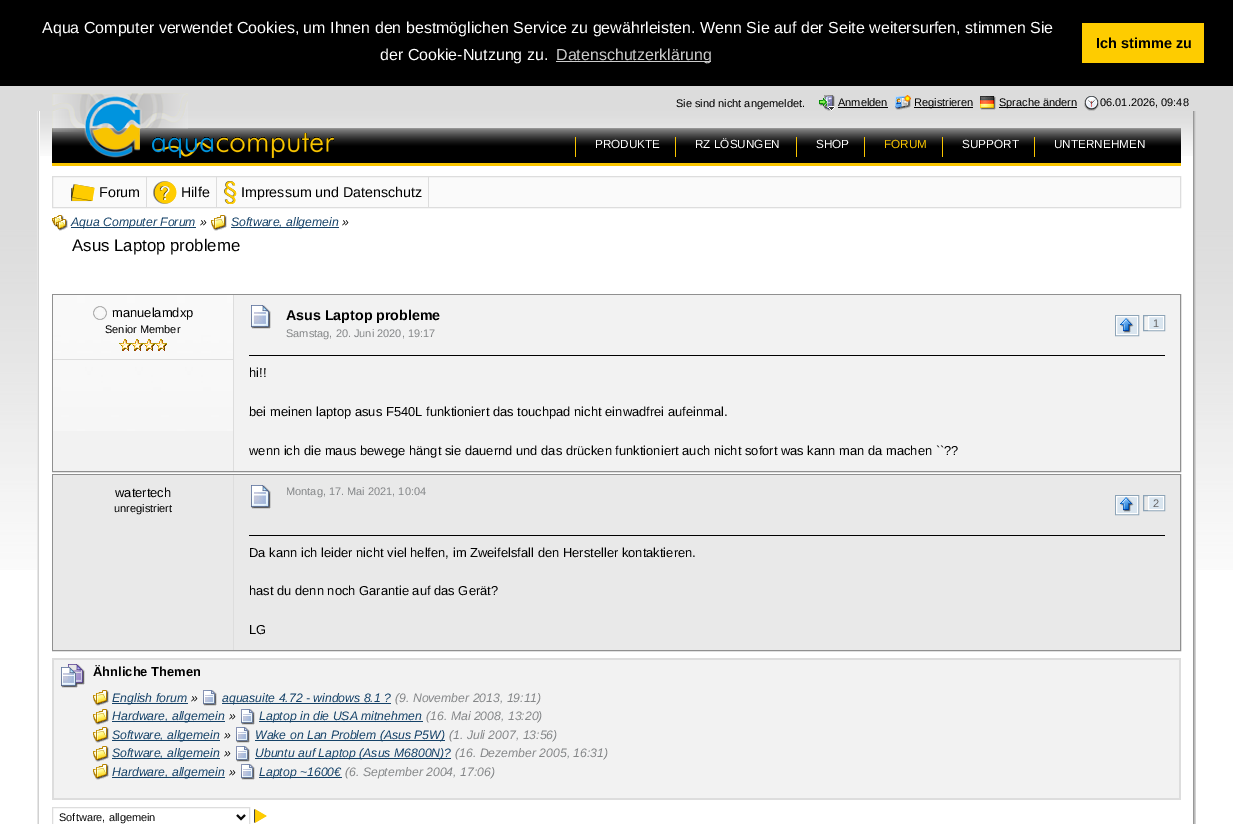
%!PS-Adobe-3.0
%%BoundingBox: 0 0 1233 824
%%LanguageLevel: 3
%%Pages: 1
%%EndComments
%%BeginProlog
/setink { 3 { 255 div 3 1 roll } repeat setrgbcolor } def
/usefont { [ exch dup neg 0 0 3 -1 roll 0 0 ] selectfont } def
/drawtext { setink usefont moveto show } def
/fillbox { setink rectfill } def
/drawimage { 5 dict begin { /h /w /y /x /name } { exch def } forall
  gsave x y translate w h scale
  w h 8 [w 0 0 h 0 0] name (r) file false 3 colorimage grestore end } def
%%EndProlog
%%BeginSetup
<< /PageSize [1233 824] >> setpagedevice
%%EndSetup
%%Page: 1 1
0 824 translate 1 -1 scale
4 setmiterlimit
0 0 1233 824 255 255 255 fillbox
(assets/img1.rgb) 0 86 1233 484 drawimage
0 0 1233 86 0 0 0 fillbox
(Aqua Computer verwendet Cookies, um Ihnen den bestmöglichen Service zu gewährleisten. Wenn Sie auf der Seite weitersurfen, stimmen Sie) 42 33 /LiberationSans-Regular 16 255 255 255 drawtext
(der Cookie-Nutzung zu.) 380 60 /LiberationSans-Regular 16 255 255 255 drawtext
556 61 155 1 204 204 204 fillbox
(Datenschutzerklärung) 556 60 /LiberationSans-Regular 16 204 204 204 drawtext
1082 23 122 40 254 204 0 fillbox
(Ich stimme zu) 1096 48 /LiberationSans-Bold 14.5 0 0 0 drawtext
(Sie sind nicht angemeldet.) 676 107 /LiberationSans-Regular 11 0 0 0 drawtext
(assets/img2.rgb) 819 95 16 16 drawimage
(Anmelden) 838 106 /LiberationSans-Regular 11 0 0 0 drawtext
838 107 50 1 0 0 0 fillbox
(assets/img3.rgb) 895 95 16 15 drawimage
914 107 59 1 0 0 0 fillbox
(Registrieren) 914 106 /LiberationSans-Regular 11 0 0 0 drawtext
(assets/img4.rgb) 980 96 16 14 drawimage
999 107 78 1 0 0 0 fillbox
(Sprache ändern) 999 106 /LiberationSans-Regular 11 0 0 0 drawtext
(assets/img5.rgb) 1084 96 15 15 drawimage
(06.01.2026, 09:48) 1100 106 /LiberationSans-Regular 11 0 0 0 drawtext
(assets/img6.rgb) 37 111 3 713 drawimage
(assets/img7.rgb) 1193 111 3 713 drawimage
40 156 1153 414 255 255 255 fillbox
(assets/img8.rgb) 40 111 1153 45 drawimage
52 163 1129 3 248 196 0 fillbox
(assets/img9.rgb) 52 128 1129 35 drawimage
(assets/img10.rgb) 52 93 136 65 drawimage
(assets/img11.rgb) 152 133 182 25 drawimage
575 137 1 20 248 196 0 fillbox
(PRODUKTE) 595 148 /LiberationSans-Regular 11.75 255 255 255 drawtext
675 137 1 20 248 196 0 fillbox
(RZ LÖSUNGEN) 695 148 /LiberationSans-Regular 11.75 255 255 255 drawtext
796 137 1 20 248 196 0 fillbox
(SHOP) 816 148 /LiberationSans-Regular 11.75 255 255 255 drawtext
864 137 1 20 248 196 0 fillbox
(FORUM) 884 148 /LiberationSans-Regular 11.75 248 196 0 drawtext
942 137 1 20 248 196 0 fillbox
(SUPPORT) 962 148 /LiberationSans-Regular 11.75 255 255 255 drawtext
1034 137 1 20 248 196 0 fillbox
(UNTERNEHMEN) 1054 148 /LiberationSans-Regular 11.75 255 255 255 drawtext
250 250 250 setink
52.5 176.5 moveto 1180.5 176.5 lineto 1180.5 207.5 lineto 52.5 207.5 lineto closepath gsave fill grestore
221 221 221 setink
stroke
146 177 1 30 221 221 221 fillbox
(assets/img12.rgb) 71 184 24 18 drawimage
(Forum) 99 197 /LiberationSans-Regular 14.25 0 0 0 drawtext
216 177 1 30 221 221 221 fillbox
(assets/img13.rgb) 153 181 24 23 drawimage
(Hilfe) 181 197 /LiberationSans-Regular 14.25 0 0 0 drawtext
428 177 1 30 221 221 221 fillbox
(assets/img14.rgb) 224 181 13 24 drawimage
(Impressum und Datenschutz) 241 197 /LiberationSans-Regular 14.25 0 0 0 drawtext
(assets/img15.rgb) 52 215 16 16 drawimage
71 227 125 1 21 66 104 fillbox
(Aqua Computer Forum) 71 226 /LiberationSans-Italic 12.25 21 66 104 drawtext
(») 200 226 /LiberationSans-Italic 12.25 0 0 0 drawtext
(assets/img16.rgb) 211 215 16 16 drawimage
231 227 108 1 21 66 104 fillbox
(Software, allgemein) 231 226 /LiberationSans-Italic 12.25 21 66 104 drawtext
(») 342 226 /LiberationSans-Italic 12.25 0 0 0 drawtext
(Asus Laptop probleme) 72 251 /LiberationSans-Regular 16.8 0 0 0 drawtext
144 144 144 setink
52.5 294.5 1128 177 rectstroke
53 431 180 40 242 242 242 fillbox
(assets/img17.rgb) 53 295 180 136 drawimage
(assets/img18.rgb) 93 306 14 14 drawimage
(manuelamdxp) 112 317 /LiberationSans-Regular 12.95 0 0 0 drawtext
(Senior Member) 105 333 /LiberationSans-Regular 11 0 0 0 drawtext
(assets/img19.rgb) 119 339 12 12 drawimage
(assets/img20.rgb) 131 339 12 12 drawimage
(assets/img21.rgb) 143 339 12 12 drawimage
(assets/img22.rgb) 155 339 12 12 drawimage
53 359 180 1 221 221 221 fillbox
233 295 1 176 221 221 221 fillbox
234 295 946 176 242 242 242 fillbox
249 355 916 1 0 0 0 fillbox
(assets/img23.rgb) 251 305 20 24 drawimage
(Asus Laptop probleme) 286 320 /LiberationSans-Bold 14.25 0 0 0 drawtext
(Samstag, 20. Juni 2020, 19:17) 286 337 /LiberationSans-Regular 11 133 135 137 drawtext
141 164 183 setink
1115.5 315.5 23 20 rectstroke
217 229 239 setink
1116.5 316.5 moveto 1137.5 316.5 lineto 1137.5 334.5 lineto 1116.5 334.5 lineto closepath gsave fill grestore
255 255 255 setink
stroke
(assets/img24.rgb) 1120 318 14 15 drawimage
141 164 183 setink
1143.5 315.5 21 15 rectstroke
217 229 239 setink
1148.5 316.5 moveto 1163.5 316.5 lineto 1163.5 329.5 lineto 1148.5 329.5 lineto closepath gsave fill grestore
255 255 255 setink
stroke
(1) 1153 327 /LiberationSans-Regular 11 102 102 102 drawtext
(hi!!) 249 377 /LiberationSans-Regular 12.95 0 0 0 drawtext
(bei meinen laptop asus F540L funktioniert das touchpad nicht einwadfrei aufeinmal.) 249 416 /LiberationSans-Regular 12.95 0 0 0 drawtext
(wenn ich die maus bewege hängt sie dauernd und das drücken funktioniert auch nicht sofort was kann man da machen ``??) 249 455 /LiberationSans-Regular 12.95 0 0 0 drawtext
144 144 144 setink
52.5 474.5 1128 176 rectstroke
53 475 1127 175 233 233 233 fillbox
(watertech) 115 497 /LiberationSans-Regular 12.95 0 0 0 drawtext
(unregistriert) 114 512 /LiberationSans-Regular 11 0 0 0 drawtext
233 475 1 175 221 221 221 fillbox
249 535 916 1 0 0 0 fillbox
(assets/img25.rgb) 251 485 20 24 drawimage
(Montag, 17. Mai 2021, 10:04) 286 495 /LiberationSans-Regular 11 133 135 137 drawtext
141 164 183 setink
1115.5 495.5 23 19 rectstroke
217 229 239 setink
1116.5 496.5 moveto 1137.5 496.5 lineto 1137.5 513.5 lineto 1116.5 513.5 lineto closepath gsave fill grestore
255 255 255 setink
stroke
(assets/img24.rgb) 1120 497 14 15 drawimage
141 164 183 setink
1143.5 495.5 21 15 rectstroke
217 229 239 setink
1148.5 496.5 moveto 1163.5 496.5 lineto 1163.5 509.5 lineto 1148.5 509.5 lineto closepath gsave fill grestore
255 255 255 setink
stroke
(2) 1153 507 /LiberationSans-Regular 11 102 102 102 drawtext
(Da kann ich leider nicht viel helfen, im Zweifelsfall den Hersteller kontaktieren.) 249 557 /LiberationSans-Regular 12.95 0 0 0 drawtext
(hast du denn noch Garantie auf das Gerät?) 249 595 /LiberationSans-Regular 12.95 0 0 0 drawtext
(LG) 249 634 /LiberationSans-Regular 12.95 0 0 0 drawtext
52 658 1129 142 221 221 221 fillbox
54 660 1125 138 242 242 242 fillbox
(assets/img26.rgb) 61 664 24 24 drawimage
(Ähnliche Themen) 93 676 /LiberationSans-Bold 12.95 0 0 0 drawtext
(assets/img27.rgb) 93 690 16 16 drawimage
112 703 76 1 21 66 104 fillbox
(English forum) 112 702 /LiberationSans-Italic 12.25 21 66 104 drawtext
(») 191 702 /LiberationSans-Italic 12.25 0 0 0 drawtext
(assets/img28.rgb) 203 690 14 16 drawimage
222 703 169 1 21 66 104 fillbox
(aquasuite 4.72 - windows 8.1 ?) 222 702 /LiberationSans-Italic 12.25 21 66 104 drawtext
(\(9. November 2013, 19:11\)) 395 702 /LiberationSans-Italic 12.25 133 135 137 drawtext
(assets/img27.rgb) 93 709 16 16 drawimage
112 721 113 1 21 66 104 fillbox
(Hardware, allgemein) 112 720 /LiberationSans-Italic 12.25 21 66 104 drawtext
(») 229 720 /LiberationSans-Italic 12.25 0 0 0 drawtext
(assets/img28.rgb) 241 709 14 16 drawimage
259 721 164 1 21 66 104 fillbox
(Laptop in die USA mitnehmen) 259 720 /LiberationSans-Italic 12.25 21 66 104 drawtext
(\(16. Mai 2008, 13:20\)) 426 720 /LiberationSans-Italic 12.25 133 135 137 drawtext
(assets/img27.rgb) 93 727 16 16 drawimage
112 740 108 1 21 66 104 fillbox
(Software, allgemein) 112 739 /LiberationSans-Italic 12.25 21 66 104 drawtext
(») 224 739 /LiberationSans-Italic 12.25 0 0 0 drawtext
(assets/img28.rgb) 236 727 14 16 drawimage
255 740 190 1 21 66 104 fillbox
(Wake on Lan Problem \(Asus P5W\)) 255 739 /LiberationSans-Italic 12.25 21 66 104 drawtext
(\(1. Juli 2007, 13:56\)) 449 739 /LiberationSans-Italic 12.25 133 135 137 drawtext
(assets/img27.rgb) 93 746 16 16 drawimage
112 758 108 1 21 66 104 fillbox
(Software, allgemein) 112 757 /LiberationSans-Italic 12.25 21 66 104 drawtext
(») 224 757 /LiberationSans-Italic 12.25 0 0 0 drawtext
(assets/img28.rgb) 236 746 14 16 drawimage
255 758 196 1 21 66 104 fillbox
(Ubuntu auf Laptop \(Asus M6800N\)?) 255 757 /LiberationSans-Italic 12.25 21 66 104 drawtext
(\(16. Dezember 2005, 16:31\)) 455 757 /LiberationSans-Italic 12.25 133 135 137 drawtext
(assets/img27.rgb) 93 764 16 16 drawimage
112 777 113 1 21 66 104 fillbox
(Hardware, allgemein) 112 776 /LiberationSans-Italic 12.25 21 66 104 drawtext
(») 229 776 /LiberationSans-Italic 12.25 0 0 0 drawtext
(assets/img28.rgb) 241 764 14 16 drawimage
259 777 83 1 21 66 104 fillbox
(Laptop ~1600€) 259 776 /LiberationSans-Italic 12.25 21 66 104 drawtext
(\(6. September 2004, 17:06\)) 345 776 /LiberationSans-Italic 12.25 133 135 137 drawtext
221 221 221 setink
52.5 807.5 197 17 rectstroke
10 10 10 setink
2 setlinewidth
237 815 moveto 241 819 lineto 245 815 lineto stroke
(Software, allgemein) 59 821 /LiberationSans-Regular 11 10 10 10 drawtext
(assets/img29.rgb) 254 809 13 14 drawimage
showpage
%%EOF
